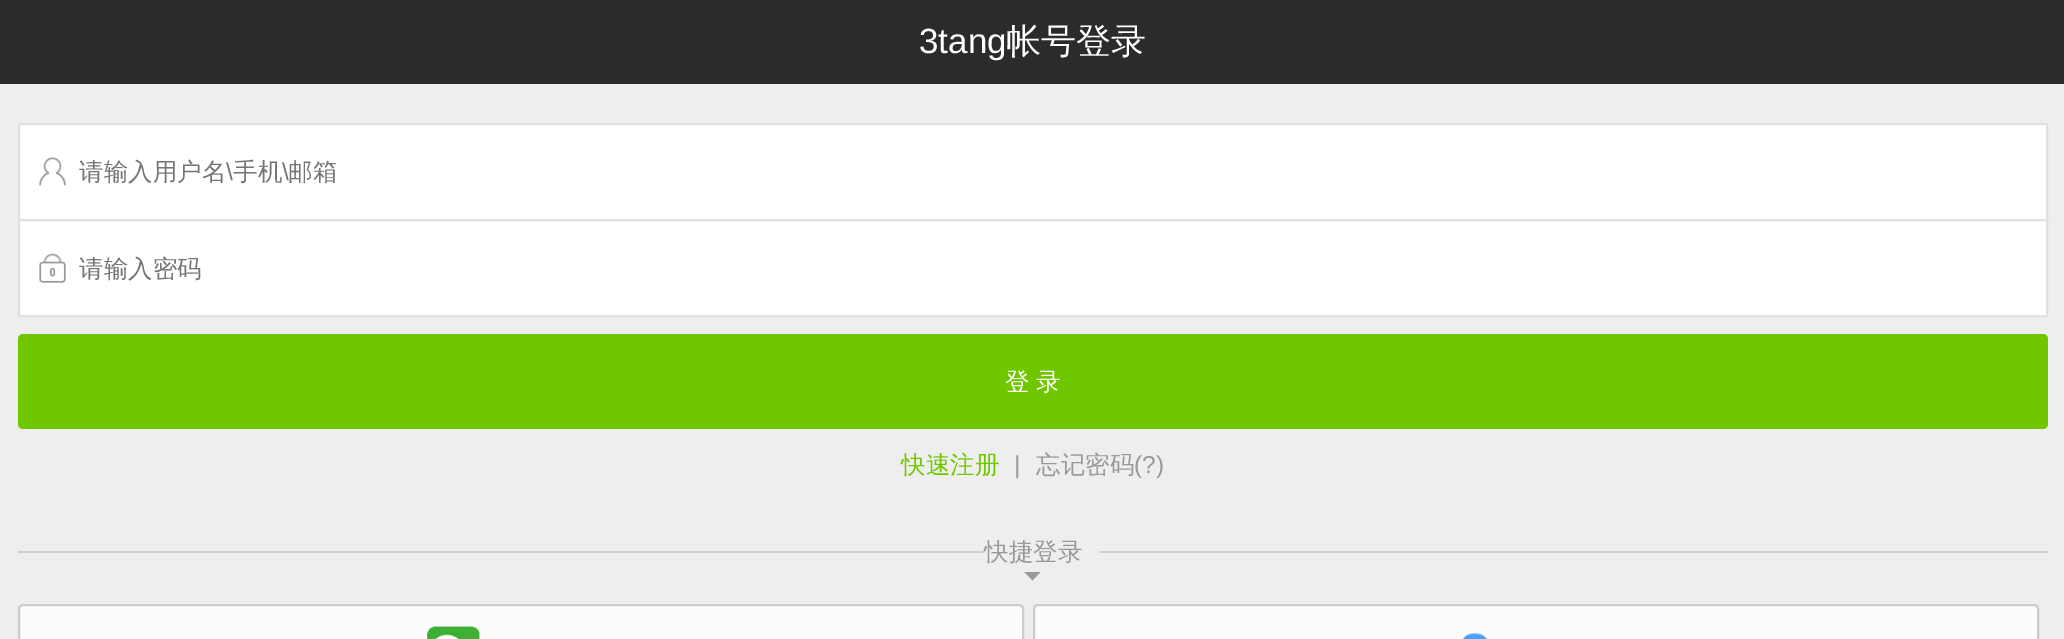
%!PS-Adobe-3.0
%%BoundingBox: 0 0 2064 639
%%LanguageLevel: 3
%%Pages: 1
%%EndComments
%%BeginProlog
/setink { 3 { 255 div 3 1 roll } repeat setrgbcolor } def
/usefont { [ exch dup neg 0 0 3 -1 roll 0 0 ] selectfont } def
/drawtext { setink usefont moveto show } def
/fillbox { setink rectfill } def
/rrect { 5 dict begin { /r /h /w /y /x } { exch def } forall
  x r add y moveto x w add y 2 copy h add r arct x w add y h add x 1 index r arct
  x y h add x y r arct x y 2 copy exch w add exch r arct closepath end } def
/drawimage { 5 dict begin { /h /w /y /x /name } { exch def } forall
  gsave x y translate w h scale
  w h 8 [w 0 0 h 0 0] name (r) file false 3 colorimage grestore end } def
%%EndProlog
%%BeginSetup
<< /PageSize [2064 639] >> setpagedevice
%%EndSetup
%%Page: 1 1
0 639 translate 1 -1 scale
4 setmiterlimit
0 0 2064 639 238 238 238 fillbox
0 0 2064 84 43 43 43 fillbox
(3tang) 919 53 /LiberationSans-Regular 35 255 255 255 drawtext
(帐号登录) 1006 53 /WenQuanYiZenHei-Medium 35 255 255 255 drawtext
19 124 moveto 2047 124 lineto 2047 220 lineto 19 220 lineto closepath gsave fill grestore
224 224 224 setink
2 setlinewidth
stroke
(assets/img1.rgb) 39 157 27 29 drawimage
(请输入用户名) 79 180 /WenQuanYiZenHei-Medium 24.5 117 117 117 drawtext
(\\) 226 180 /LiberationSans-Regular 24.5 117 117 117 drawtext
(手机) 233 180 /WenQuanYiZenHei-Medium 24.5 117 117 117 drawtext
(\\) 282 180 /LiberationSans-Regular 24.5 117 117 117 drawtext
(邮箱) 288 180 /WenQuanYiZenHei-Medium 24.5 117 117 117 drawtext
255 255 255 setink
19 220 moveto 2047 220 lineto 2047 316 lineto 19 316 lineto closepath gsave fill grestore
224 224 224 setink
stroke
(assets/img2.rgb) 39 253 27 30 drawimage
(请输入密码) 79 277 /WenQuanYiZenHei-Medium 24.5 117 117 117 drawtext
112 199 0 setink
18 334 2030 95 5 rrect fill
255 255 255 setink
1005 390 moveto -1 0 32 (登 录) widthshow
(快速注册) 901 473 /WenQuanYiZenHei-Medium 24.5 112 199 0 drawtext
(|) 1014 473 /LiberationSans-Regular 24.5 153 153 153 drawtext
(忘记密码) 1036 473 /WenQuanYiZenHei-Medium 24.5 153 153 153 drawtext
(\(?\)) 1134 473 /LiberationSans-Regular 24.5 153 153 153 drawtext
18 551 2030 2 209 209 209 fillbox
984 551 115 2 238 238 238 fillbox
(快捷登录) 984 560 /WenQuanYiZenHei-Medium 24.5 153 153 153 drawtext
1024 572 moveto 1041 572 lineto 1032.5 581 lineto closepath fill
238 238 238 setink
1041 572 moveto 1041 590 lineto 1032.5 581 lineto closepath fill
1024 590 moveto 1024 572 lineto 1032.5 581 lineto closepath fill
252 252 252 setink
19 605 1004 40 4 rrect gsave fill grestore
204 204 204 setink
stroke
(assets/img3.rgb) 427 626 53 13 drawimage
252 252 252 setink
1034 605 1004 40 4 rrect gsave fill grestore
204 204 204 setink
stroke
(assets/img4.rgb) 1462 633 25 6 drawimage
showpage
%%EOF
